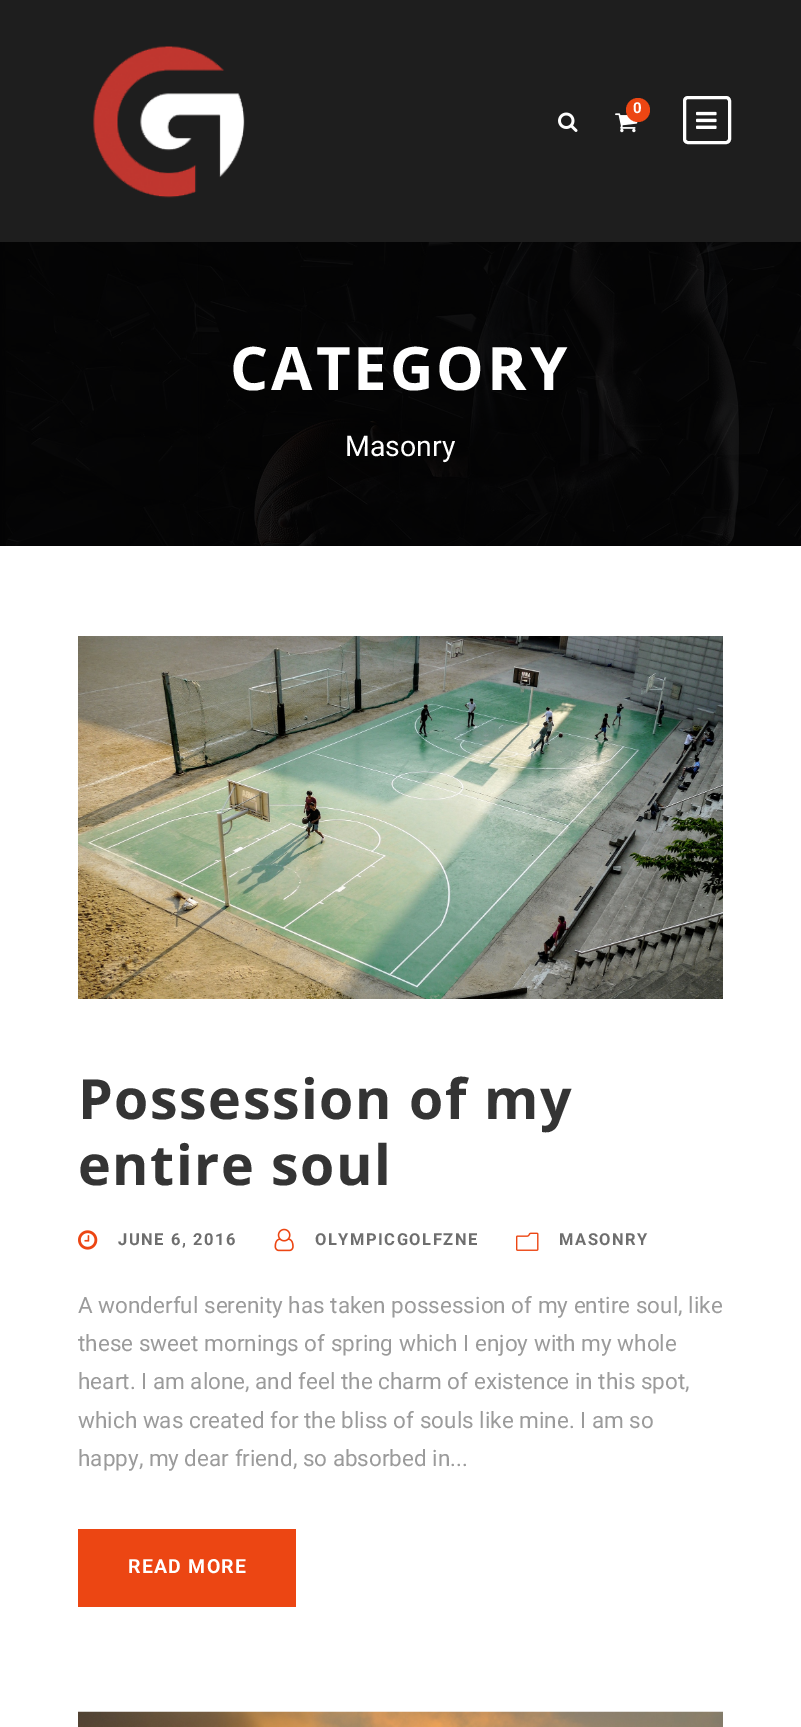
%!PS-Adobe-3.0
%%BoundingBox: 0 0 801 1727
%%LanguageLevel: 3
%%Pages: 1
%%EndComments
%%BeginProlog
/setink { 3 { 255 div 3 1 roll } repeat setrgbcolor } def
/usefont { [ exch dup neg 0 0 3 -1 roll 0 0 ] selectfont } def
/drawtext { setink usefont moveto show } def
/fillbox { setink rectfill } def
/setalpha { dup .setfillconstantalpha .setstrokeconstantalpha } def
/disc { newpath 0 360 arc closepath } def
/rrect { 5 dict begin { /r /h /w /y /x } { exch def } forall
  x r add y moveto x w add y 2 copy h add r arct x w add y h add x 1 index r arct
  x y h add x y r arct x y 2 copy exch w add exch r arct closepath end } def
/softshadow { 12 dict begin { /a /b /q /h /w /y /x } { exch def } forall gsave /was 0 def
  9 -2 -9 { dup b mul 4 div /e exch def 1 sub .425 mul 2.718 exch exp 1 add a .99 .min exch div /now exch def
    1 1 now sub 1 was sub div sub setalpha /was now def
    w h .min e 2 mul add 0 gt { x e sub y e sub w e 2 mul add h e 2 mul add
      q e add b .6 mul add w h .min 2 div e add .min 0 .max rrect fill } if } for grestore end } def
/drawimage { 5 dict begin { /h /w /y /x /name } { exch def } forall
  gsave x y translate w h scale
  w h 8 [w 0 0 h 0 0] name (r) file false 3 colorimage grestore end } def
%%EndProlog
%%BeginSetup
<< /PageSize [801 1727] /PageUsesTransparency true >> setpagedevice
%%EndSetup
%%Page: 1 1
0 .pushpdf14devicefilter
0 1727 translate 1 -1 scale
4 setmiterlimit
0 0 801 1727 255 255 255 fillbox
(assets/img5.rgb) 0 242 801 304 drawimage
0 0 0 setink
0 2 801 241 0 1.5 0.1 softshadow
0 0 801 242 30 30 30 fillbox
(assets/img1.rgb) 93 46 152 152 drawimage
(assets/img2.rgb) 615 113 23 20 drawimage
236 70 19 setink
638 110 12 disc fill
(0) 633 113 /Roboto-Bold 15 255 255 255 drawtext
3 setlinewidth
684.5 97.5 45 45 3.5 rrect stroke
(assets/img3.rgb) 696 111 21 18 drawimage
(assets/img4.rgb) 558 112 20 20 drawimage
/OpenSans-Bold 60 usefont
230 390 moveto 3 0 (CATEGORY) ashow
(Masonry) 345 456 /Roboto-Regular 28.5 255 255 255 drawtext
(assets/img6.rgb) 78 636 645 363 drawimage
/OpenSans-Bold 55.5 usefont
52 52 52 setink
78 1119 moveto 1.5 0 (Possession of my) ashow
78 1185 moveto 1.5 0 (entire soul) ashow
(assets/img7.rgb) 78 1230 20 20 drawimage
/Roboto-Bold 16.5 usefont
110 110 110 setink
118 1245 moveto 1.5 0 (JUNE 6, 2016) ashow
(assets/img8.rgb) 274 1228 20 24 drawimage
315 1245 moveto 1.5 0 (OLYMPICGOLFZNE) ashow
(assets/img9.rgb) 516 1232 23 19 drawimage
559 1245 moveto 1.5 0 (MASONRY) ashow
(A wonderful serenity has taken possession of my entire soul, like) 78 1313 /Roboto-Regular 22.5 155 155 155 drawtext
(these sweet mornings of spring which I enjoy with my whole) 78 1351 /Roboto-Regular 22.5 155 155 155 drawtext
(heart. I am alone, and feel the charm of existence in this spot,) 78 1389 /Roboto-Regular 22.5 155 155 155 drawtext
(which was created for the bliss of souls like mine. I am so) 78 1428 /Roboto-Regular 22.5 155 155 155 drawtext
(happy, my dear friend, so absorbed in...) 78 1466 /Roboto-Regular 22.5 155 155 155 drawtext
78 1529 218 78 236 70 19 fillbox
/Roboto-Bold 19.5 usefont
255 255 255 setink
128 1573 moveto 1.25 0 (READ MORE) ashow
(assets/img10.rgb) 78 1711 645 16 drawimage
.poppdf14devicefilter showpage
%%EOF
